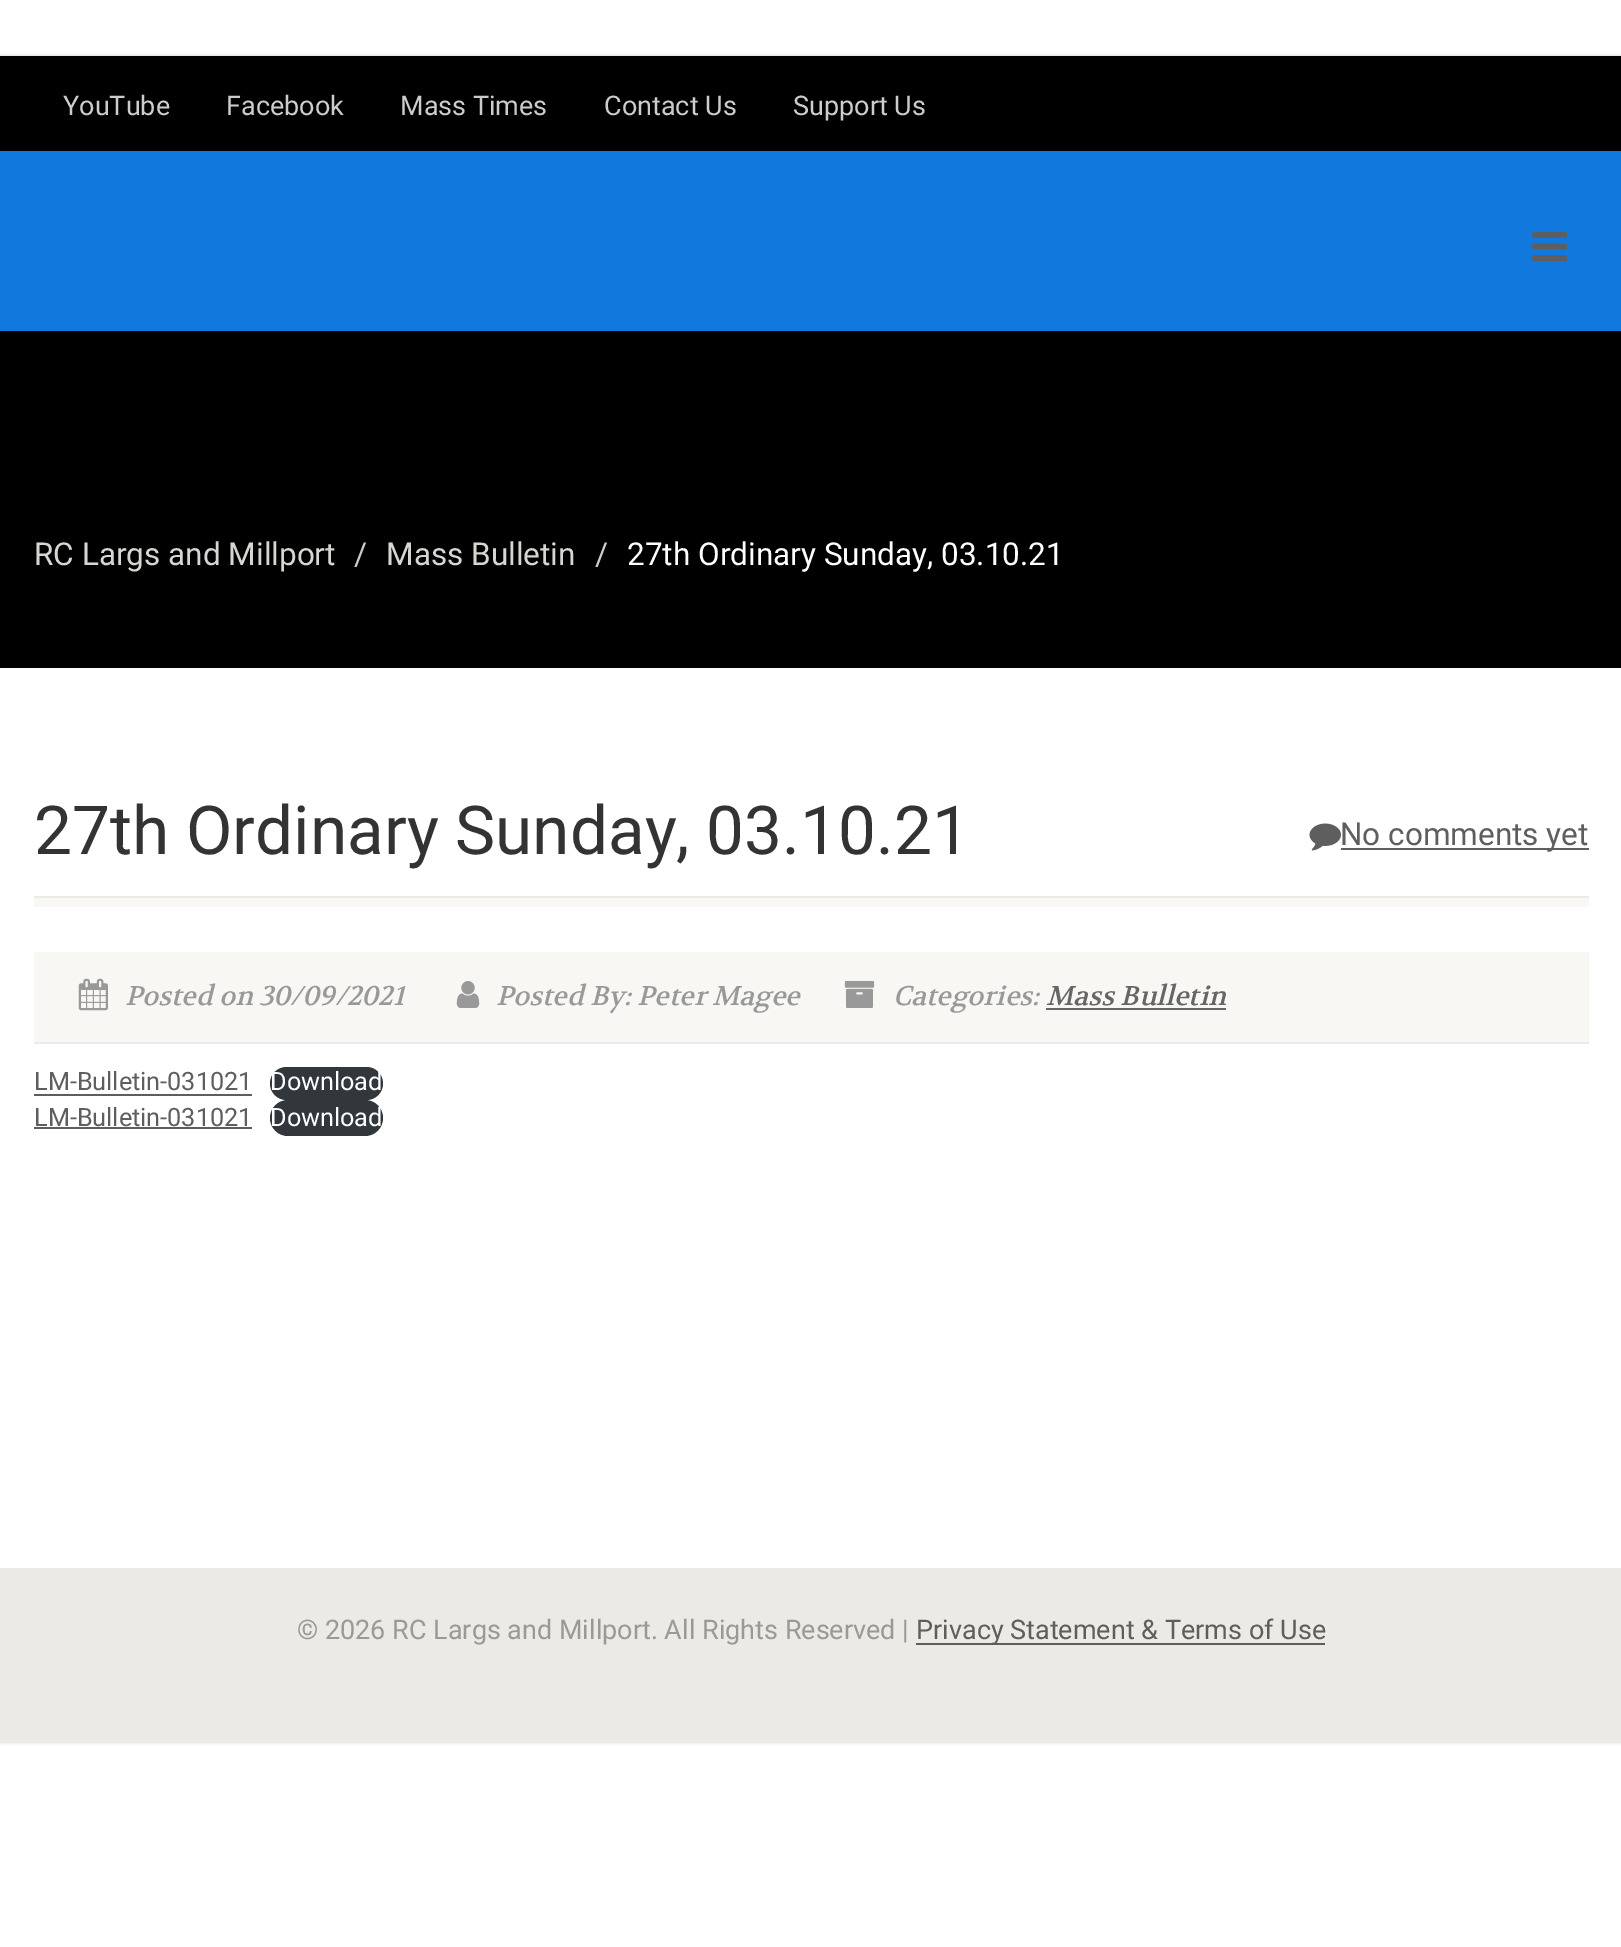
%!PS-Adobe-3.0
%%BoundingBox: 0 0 1621 1947
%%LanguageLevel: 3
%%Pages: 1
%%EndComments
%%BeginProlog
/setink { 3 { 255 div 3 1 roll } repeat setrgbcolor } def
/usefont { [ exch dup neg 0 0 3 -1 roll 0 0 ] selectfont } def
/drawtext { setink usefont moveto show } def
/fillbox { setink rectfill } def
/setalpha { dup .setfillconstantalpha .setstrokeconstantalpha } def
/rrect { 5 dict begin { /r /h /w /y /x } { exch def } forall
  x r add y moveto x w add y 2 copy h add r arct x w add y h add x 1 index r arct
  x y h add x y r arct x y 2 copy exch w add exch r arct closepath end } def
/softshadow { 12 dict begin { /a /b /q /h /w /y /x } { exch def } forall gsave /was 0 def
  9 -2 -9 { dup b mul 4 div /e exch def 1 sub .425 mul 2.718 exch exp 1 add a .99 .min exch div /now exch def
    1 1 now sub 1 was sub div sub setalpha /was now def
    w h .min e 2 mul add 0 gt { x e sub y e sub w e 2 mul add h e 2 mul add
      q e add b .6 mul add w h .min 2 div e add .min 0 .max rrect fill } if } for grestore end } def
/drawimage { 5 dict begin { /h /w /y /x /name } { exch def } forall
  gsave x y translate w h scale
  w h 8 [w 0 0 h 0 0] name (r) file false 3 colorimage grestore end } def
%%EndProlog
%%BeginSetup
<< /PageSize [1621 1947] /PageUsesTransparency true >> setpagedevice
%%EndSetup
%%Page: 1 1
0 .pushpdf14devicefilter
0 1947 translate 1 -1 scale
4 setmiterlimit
0 0 1621 1947 255 255 255 fillbox
0 0 0 setink
0 56 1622 1686 0 2 0.2 softshadow
0 668 1621 900 255 255 255 fillbox
0 56 1621 95 0 0 0 fillbox
(YouTube) 63 115 /Roboto-Regular 27 204 204 204 drawtext
(Facebook) 226 115 /Roboto-Regular 27 204 204 204 drawtext
(Mass Times) 400 115 /Roboto-Regular 27 204 204 204 drawtext
(Contact Us) 604 115 /Roboto-Regular 27 204 204 204 drawtext
(Support Us) 793 115 /Roboto-Regular 27 204 204 204 drawtext
0 151 1621 180 17 120 221 fillbox
(assets/img1.rgb) 1532 232 35 29 drawimage
0 331 1621 337 0 0 0 fillbox
(RC Largs and Millport) 34 565 /Roboto-Regular 31.5 216 214 209 drawtext
(/) 354 565 /Roboto-Regular 31.5 204 204 204 drawtext
(Mass Bulletin) 386 565 /Roboto-Regular 31.5 216 214 209 drawtext
(/) 595 565 /Roboto-Regular 31.5 204 204 204 drawtext
(27th Ordinary Sunday, 03.10.21) 627 565 /Roboto-Regular 31.5 255 255 255 drawtext
34 896 1555 2 236 234 228 fillbox
(27th Ordinary Sunday, 03.10.21) 34 854 /Roboto-Regular 67.5 51 51 51 drawtext
(assets/img2.rgb) 1309 823 32 28 drawimage
1341 848 248 2 94 94 94 fillbox
(No comments yet) 1340 845 /Roboto-Regular 31.5 94 94 94 drawtext
34 898 1555 9 248 247 243 fillbox
34 952 1555 90 248 247 243 fillbox
34 1042 1555 2 236 234 228 fillbox
(assets/img3.rgb) 78 978 30 33 drawimage
(Posted on 30/09/2021) 125 1005 /Volkhov-Italic 27 153 153 153 drawtext
(assets/img4.rgb) 456 981 24 27 drawimage
(Posted By: Peter Magee) 496 1005 /Volkhov-Italic 27 153 153 153 drawtext
(assets/img5.rgb) 844 981 31 27 drawimage
(Categories:) 893 1005 /Volkhov-Italic 27 153 153 153 drawtext
(Mass Bulletin) 1046 1005 /Volkhov-Italic 27 102 102 102 drawtext
1046 1008 180 2 102 102 102 fillbox
(LM-Bulletin-031021) 34 1090 /Roboto-Regular 25.25 94 94 94 drawtext
34 1094 218 2 94 94 94 fillbox
50 55 60 setink
270 1067 113 33 16.5 rrect fill
(Download) 270 1090 /Roboto-Regular 25.25 255 255 255 drawtext
(LM-Bulletin-031021) 34 1126 /Roboto-Regular 25.25 94 94 94 drawtext
34 1127 218 2 94 94 94 fillbox
50 55 60 setink
270 1100 113 36 18 rrect fill
(Download) 270 1126 /Roboto-Regular 25.25 255 255 255 drawtext
0 1568 1621 174 236 234 228 fillbox
(© 2026 RC Largs and Millport. All Rights Reserved |) 297 1639 /Roboto-Regular 27 153 153 153 drawtext
916 1643 409 2 94 94 94 fillbox
(Privacy Statement & Terms of Use) 916 1639 /Roboto-Regular 27 94 94 94 drawtext
.poppdf14devicefilter showpage
%%EOF
